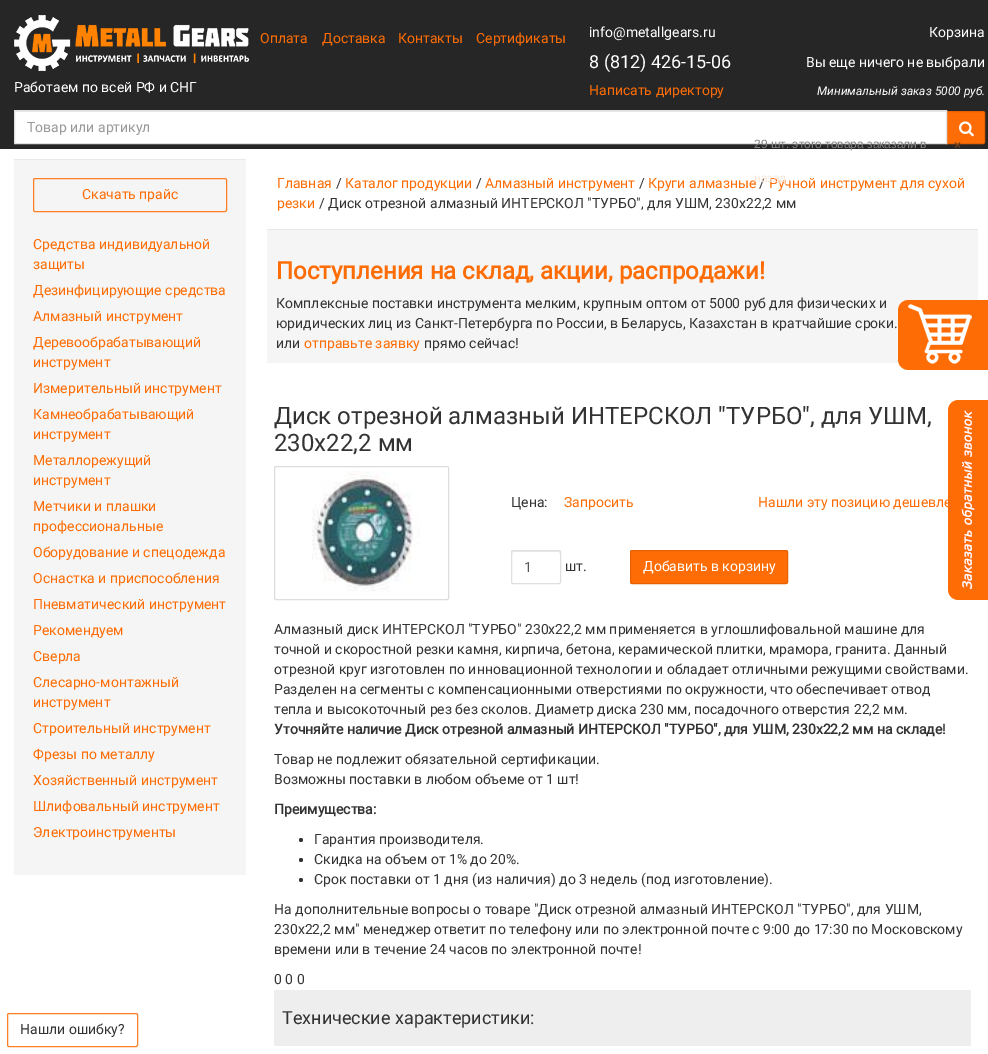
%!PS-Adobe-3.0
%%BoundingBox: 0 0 988 1054
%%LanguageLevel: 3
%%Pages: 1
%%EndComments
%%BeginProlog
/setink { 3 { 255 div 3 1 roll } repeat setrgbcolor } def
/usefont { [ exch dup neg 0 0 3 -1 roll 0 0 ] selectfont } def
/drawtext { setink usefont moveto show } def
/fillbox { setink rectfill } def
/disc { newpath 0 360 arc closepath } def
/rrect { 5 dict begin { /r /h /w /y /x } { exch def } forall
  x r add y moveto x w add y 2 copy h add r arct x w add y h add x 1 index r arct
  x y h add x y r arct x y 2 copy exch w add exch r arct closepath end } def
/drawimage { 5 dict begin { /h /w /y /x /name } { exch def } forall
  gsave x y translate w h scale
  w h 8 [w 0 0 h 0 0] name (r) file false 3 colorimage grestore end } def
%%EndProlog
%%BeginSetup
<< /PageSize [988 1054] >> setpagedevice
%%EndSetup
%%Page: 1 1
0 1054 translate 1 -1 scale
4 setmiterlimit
0 0 988 1054 255 255 255 fillbox
0 0 988 149 38 38 38 fillbox
(Оплата) 260 43 /Roboto-Regular 14 254 109 5 drawtext
(Доставка) 322 43 /Roboto-Regular 14 254 109 5 drawtext
(Контакты) 398 43 /Roboto-Regular 14 254 109 5 drawtext
(Сертификаты) 476 43 /Roboto-Regular 14 254 109 5 drawtext
(info@metallgears.ru) 589 37 /Roboto-Regular 14 255 255 255 drawtext
(8 \(812\) 426-15-06) 589 68 /Roboto-Regular 18 255 255 255 drawtext
(Написать директору) 589 95 /Roboto-Regular 14 254 109 5 drawtext
(Корзина) 929 37 /Roboto-Regular 14 255 255 255 drawtext
(Вы еще ничего не выбрали) 806 67 /Roboto-Regular 14 255 255 255 drawtext
(Минимальный заказ 5000 руб.) 817 95 /Roboto-Italic 12 255 255 255 drawtext
(assets/img1.rgb) 14 15 235 56 drawimage
(Работаем по всей РФ и СНГ) 14 92 /Roboto-Regular 14 255 255 255 drawtext
15 112 931 31 255 255 255 fillbox
15 111 931 1 236 236 236 fillbox
254 109 5 setink
946.5 111.5 moveto 983 111.5 lineto 984 111.5 984.5 112 984.5 113 curveto 984.5 142 lineto 984.5 143 984 143.5 983 143.5 curveto 946.5 143.5 lineto closepath gsave fill grestore
232 97 1 setink
stroke
224 224 224 setink
14.5 110.5 932 33 rectstroke
(Товар или артикул) 27 132 /Roboto-Regular 14 153 153 153 drawtext
(assets/img2.rgb) 959 121 15 16 drawimage
14 160 232 715 245 245 245 fillbox
14 159 232 1 233 233 233 fillbox
254 128 38 setink
33.5 178.5 193 33 1.5 rrect stroke
(Скачать прайс) 82 199 /Roboto-Regular 14 254 109 5 drawtext
(Средства индивидуальной) 33 249 /Roboto-Regular 14 254 109 5 drawtext
(защиты) 33 269 /Roboto-Regular 14 254 109 5 drawtext
(Дезинфицирующие средства) 33 295 /Roboto-Regular 14 254 109 5 drawtext
(Алмазный инструмент) 33 321 /Roboto-Regular 14 254 109 5 drawtext
(Деревообрабатывающий) 33 347 /Roboto-Regular 14 254 109 5 drawtext
(инструмент) 33 367 /Roboto-Regular 14 254 109 5 drawtext
(Измерительный инструмент) 33 393 /Roboto-Regular 14 254 109 5 drawtext
(Камнеобрабатывающий) 33 419 /Roboto-Regular 14 254 109 5 drawtext
(инструмент) 33 439 /Roboto-Regular 14 254 109 5 drawtext
(Металлорежущий) 33 465 /Roboto-Regular 14 254 109 5 drawtext
(инструмент) 33 485 /Roboto-Regular 14 254 109 5 drawtext
(Метчики и плашки) 33 511 /Roboto-Regular 14 254 109 5 drawtext
(профессиональные) 33 531 /Roboto-Regular 14 254 109 5 drawtext
(Оборудование и спецодежда) 33 557 /Roboto-Regular 14 254 109 5 drawtext
(Оснастка и приспособления) 33 583 /Roboto-Regular 14 254 109 5 drawtext
(Пневматический инструмент) 33 609 /Roboto-Regular 14 254 109 5 drawtext
(Рекомендуем) 33 635 /Roboto-Regular 14 254 109 5 drawtext
(Сверла) 33 661 /Roboto-Regular 14 254 109 5 drawtext
(Слесарно-монтажный) 33 687 /Roboto-Regular 14 254 109 5 drawtext
(инструмент) 33 707 /Roboto-Regular 14 254 109 5 drawtext
(Строительный инструмент) 33 733 /Roboto-Regular 14 254 109 5 drawtext
(Фрезы по металлу) 33 759 /Roboto-Regular 14 254 109 5 drawtext
(Хозяйственный инструмент) 33 785 /Roboto-Regular 14 254 109 5 drawtext
(Шлифовальный инструмент) 33 811 /Roboto-Regular 14 254 109 5 drawtext
(Электроинструменты) 33 837 /Roboto-Regular 14 254 109 5 drawtext
(Главная) 277 188 /Roboto-Regular 14 254 109 5 drawtext
(/) 336 188 /Roboto-Regular 14 51 51 51 drawtext
(Каталог продукции) 345 188 /Roboto-Regular 14 254 109 5 drawtext
(/) 476 188 /Roboto-Regular 14 51 51 51 drawtext
(Алмазный инструмент) 485 188 /Roboto-Regular 14 254 109 5 drawtext
(/) 639 188 /Roboto-Regular 14 51 51 51 drawtext
(Круги алмазные) 648 188 /Roboto-Regular 14 254 109 5 drawtext
(/) 759 188 /Roboto-Regular 14 51 51 51 drawtext
(Ручной инструмент для сухой) 769 188 /Roboto-Regular 14 254 109 5 drawtext
(резки) 277 208 /Roboto-Regular 14 254 109 5 drawtext
(/ Диск отрезной алмазный ИНТЕРСКОЛ "ТУРБО", для УШМ, 230х22,2 мм) 319 208 /Roboto-Regular 14 51 51 51 drawtext
267 230 711 133 245 245 245 fillbox
267 229 711 1 233 233 233 fillbox
(Поступления на склад, акции, распродажи!) 276 279 /Roboto-Bold 24 254 109 5 drawtext
(Комплексные поставки инструмента мелким, крупным оптом от 5000 руб для физических и) 276 308 /Roboto-Regular 14 51 51 51 drawtext
(юридических лиц из Санкт-Петербурга по России, в Беларусь, Казахстан в кратчайшие сроки.) 276 328 /Roboto-Regular 14 51 51 51 drawtext
(или) 276 348 /Roboto-Regular 14 51 51 51 drawtext
(отправьте заявку) 304 348 /Roboto-Regular 14 254 109 5 drawtext
(прямо сейчас!) 424 348 /Roboto-Regular 14 51 51 51 drawtext
(Диск отрезной алмазный ИНТЕРСКОЛ "ТУРБО", для УШМ,) 274 424 /Roboto-Regular 24 51 51 51 drawtext
(230х22,2 мм) 274 451 /Roboto-Regular 24 51 51 51 drawtext
221 221 221 setink
274.5 466.5 174 133 1.5 rrect stroke
(assets/img3.rgb) 312 471 108 121 drawimage
(Цена:) 511 507 /Roboto-Regular 14 51 51 51 drawtext
(Запросить) 564 507 /Roboto-Regular 14 254 109 5 drawtext
(Нашли эту позицию дешевле) 758 507 /Roboto-Regular 14 254 109 5 drawtext
236 236 236 setink
513 552 moveto 559 552 lineto 560 554 lineto 560 549 557 551 551 551 curveto 521 551 lineto 515 551 512 549 512 554 curveto closepath fill
224 224 224 setink
511.5 550.5 49 33 1.5 rrect stroke
(1) 524 572 /Roboto-Regular 14 85 85 85 drawtext
(шт.) 565 571 /Roboto-Regular 14 51 51 51 drawtext
254 109 5 setink
630.5 550.5 157 33 1.5 rrect gsave fill grestore
232 97 1 setink
stroke
(Добавить в корзину) 643 571 /Roboto-Regular 14 255 255 255 drawtext
(Алмазный диск ИНТЕРСКОЛ "ТУРБО" 230х22,2 мм применяется в углошлифовальной машине для) 274 634 /Roboto-Regular 14 51 51 51 drawtext
(точной и скоростной резки камня, кирпича, бетона, керамической плитки, мрамора, гранита. Данный) 274 654 /Roboto-Regular 14 51 51 51 drawtext
(отрезной круг изготовлен по инновационной технологии и обладает отличными режущими свойствами.) 274 674 /Roboto-Regular 14 51 51 51 drawtext
(Разделен на сегменты с компенсационными отверстиями по окружности, что обеспечивает отвод) 274 694 /Roboto-Regular 14 51 51 51 drawtext
(тепла и высокоточный рез без сколов. Диаметр диска 230 мм, посадочного отверстия 22,2 мм.) 274 714 /Roboto-Regular 14 51 51 51 drawtext
(Уточняйте наличие Диск отрезной алмазный ИНТЕРСКОЛ "ТУРБО", для УШМ, 230х22,2 мм на складе!) 274 734 /Roboto-Bold 14 51 51 51 drawtext
(Товар не подлежит обязательной сертификации.) 274 764 /Roboto-Regular 14 51 51 51 drawtext
(Возможны поставки в любом объеме от 1 шт!) 274 784 /Roboto-Regular 14 51 51 51 drawtext
(Преимущества:) 274 814 /Roboto-Bold 14 51 51 51 drawtext
301 840 2 disc fill
(Гарантия производителя.) 314 844 /Roboto-Regular 14 51 51 51 drawtext
301 860 2 disc fill
(Скидка на объем от 1% до 20%.) 314 864 /Roboto-Regular 14 51 51 51 drawtext
301 880 2 disc fill
(Срок поставки от 1 дня \(из наличия\) до 3 недель \(под изготовление\).) 314 884 /Roboto-Regular 14 51 51 51 drawtext
(На дополнительные вопросы о товаре "Диск отрезной алмазный ИНТЕРСКОЛ "ТУРБО", для УШМ,) 274 914 /Roboto-Regular 14 51 51 51 drawtext
(230х22,2 мм" менеджер ответит по телефону или по электронной почте с 9:00 до 17:30 по Московскому) 274 934 /Roboto-Regular 14 51 51 51 drawtext
(времени или в течение 24 часов по электронной почте!) 274 954 /Roboto-Regular 14 51 51 51 drawtext
(0 0 0) 274 984 /Roboto-Regular 14 51 51 51 drawtext
274 990 697 56 238 238 238 fillbox
(Технические характеристики:) 282 1024 /Roboto-Regular 18 51 51 51 drawtext
(assets/img4.rgb) 898 300 90 70 drawimage
(assets/img5.rgb) 948 400 40 200 drawimage
(29 шт. этого товара заказали в) 754 148 /LiberationSans-Regular 12 131 129 129 drawtext
(назад) 754 182 /LiberationSans-Regular 12 250 228 214 drawtext
(×) 954 149 /LiberationSans-Bold 12 116 66 31 drawtext
254 128 38 setink
7.5 1013.5 130 33 1.5 rrect stroke
(Нашли ошибку?) 20 1034 /Roboto-Regular 14 51 51 51 drawtext
showpage
%%EOF
